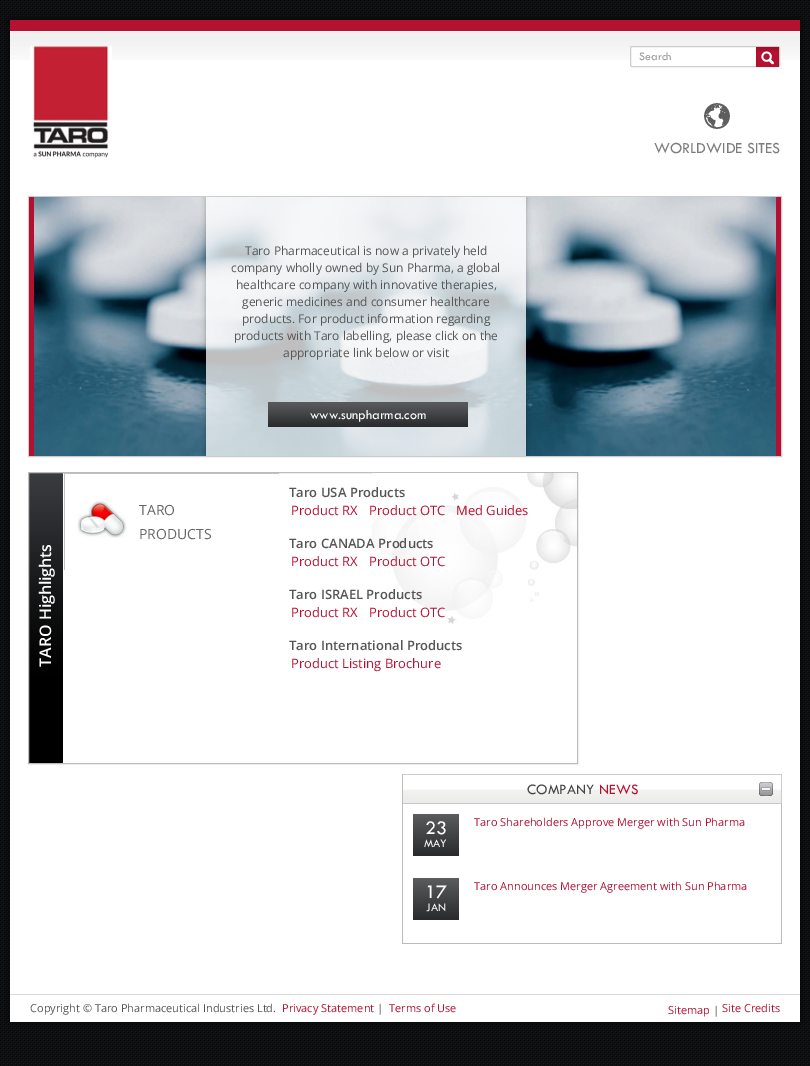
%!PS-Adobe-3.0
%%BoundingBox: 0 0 810 1066
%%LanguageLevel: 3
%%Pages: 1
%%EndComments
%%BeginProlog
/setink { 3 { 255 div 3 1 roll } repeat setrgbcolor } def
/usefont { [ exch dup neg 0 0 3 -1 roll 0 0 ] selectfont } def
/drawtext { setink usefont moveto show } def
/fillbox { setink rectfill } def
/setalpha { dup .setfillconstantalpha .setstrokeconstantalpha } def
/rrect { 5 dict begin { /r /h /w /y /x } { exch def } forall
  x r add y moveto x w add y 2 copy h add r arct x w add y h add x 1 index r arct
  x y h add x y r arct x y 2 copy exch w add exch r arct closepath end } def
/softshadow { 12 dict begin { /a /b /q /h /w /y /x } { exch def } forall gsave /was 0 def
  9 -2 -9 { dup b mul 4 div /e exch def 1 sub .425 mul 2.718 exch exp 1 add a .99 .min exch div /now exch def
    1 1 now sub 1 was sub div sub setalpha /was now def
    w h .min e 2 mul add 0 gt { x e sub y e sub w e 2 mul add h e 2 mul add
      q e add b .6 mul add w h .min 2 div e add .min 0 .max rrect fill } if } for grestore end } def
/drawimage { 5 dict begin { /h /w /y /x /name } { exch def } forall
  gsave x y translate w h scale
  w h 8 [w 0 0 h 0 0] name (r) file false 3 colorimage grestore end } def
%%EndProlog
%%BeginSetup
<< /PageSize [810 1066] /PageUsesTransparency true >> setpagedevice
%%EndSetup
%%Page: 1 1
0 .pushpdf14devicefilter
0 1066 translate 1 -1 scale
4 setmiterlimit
0 0 810 1066 255 255 255 fillbox
(assets/img1.rgb) 0 0 810 1066 drawimage
0 0 0 setink
10 20 790 1002 0 5 0.7 softshadow
10 31 790 991 255 255 255 fillbox
(assets/img2.rgb) 10 32 790 28 drawimage
10 20 790 11 182 17 49 fillbox
(assets/img3.rgb) 30 46 82 112 drawimage
255 255 255 setink
630.5 46.5 149 20 1.5 rrect gsave fill grestore
204 204 204 setink
stroke
(Search) 639 60 /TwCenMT-Regular 12 153 153 153 drawtext
(assets/img4.rgb) 756 47 23 20 drawimage
(assets/img5.rgb) 704 103 26 26 drawimage
(WORLDWIDE SITES) 654 153 /TwCenMT-Regular 16 124 124 124 drawtext
204 204 204 setink
28.5 196.5 753 260 rectstroke
776 197 5 259 181 16 49 fillbox
29 197 5 259 181 16 49 fillbox
(assets/img6.rgb) 34 197 742 259 drawimage
(assets/img8.rgb) 29 473 34 290 drawimage
189 188 189 setink
28.5 472.5 549 291 rectstroke
64 473 215 1 193 193 193 fillbox
(assets/img10.rgb) 372 473 205 151 drawimage
gsave
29 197 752 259 rectclip
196 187 moveto 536 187 lineto 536 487 lineto 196 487 lineto closepath 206 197 moveto 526 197 lineto 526 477 lineto 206 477 lineto closepath eoclip newpath
0 0 0 setink
206 197 320 280 0 3 0.3 softshadow
grestore
0.75 setalpha
206 197 320 259 255 255 255 fillbox
1 setalpha
(Taro Pharmaceutical is now a privately held) 245 255 /OpenSans-Regular 12 86 86 86 drawtext
(company wholly owned by Sun Pharma, a global) 231 272 /OpenSans-Regular 12 86 86 86 drawtext
(healthcare company with innovative therapies,) 236 289 /OpenSans-Regular 12 86 86 86 drawtext
(generic medicines and consumer healthcare) 242 306 /OpenSans-Regular 12 86 86 86 drawtext
(products. For product information regarding) 242 323 /OpenSans-Regular 12 86 86 86 drawtext
(products with Taro labelling, please click on the) 234 340 /OpenSans-Regular 12 86 86 86 drawtext
(appropriate link below or visit) 283 357 /OpenSans-Regular 12 86 86 86 drawtext
(assets/img7.rgb) 268 402 200 25 drawimage
(www.sunpharma.com) 310 419 /TwCenMT-Regular 14 255 255 255 drawtext
64 473 1 97 193 193 193 fillbox
(assets/img9.rgb) 77 501 50 37 drawimage
(TARO) 139 515 /OpenSans-Regular 14 102 102 102 drawtext
(PRODUCTS) 139 539 /OpenSans-Regular 14 102 102 102 drawtext
(Taro USA Products) 289 497 /OpenSans-SemiBold 13 86 86 86 drawtext
(Product RX) 291 515 /OpenSans-Regular 13 182 17 49 drawtext
(Product OTC) 369 515 /OpenSans-Regular 13 182 17 49 drawtext
(Med Guides) 456 515 /OpenSans-Regular 13 182 17 49 drawtext
(Taro CANADA Products) 289 548 /OpenSans-SemiBold 13 86 86 86 drawtext
(Product RX) 291 566 /OpenSans-Regular 13 182 17 49 drawtext
(Product OTC) 369 566 /OpenSans-Regular 13 182 17 49 drawtext
(Taro ISRAEL Products) 289 599 /OpenSans-SemiBold 13 86 86 86 drawtext
(Product RX) 291 617 /OpenSans-Regular 13 182 17 49 drawtext
(Product OTC) 369 617 /OpenSans-Regular 13 182 17 49 drawtext
(Taro International Products) 289 650 /OpenSans-SemiBold 13 86 86 86 drawtext
(Product Listing Brochure) 291 668 /OpenSans-Regular 13 182 17 49 drawtext
402 943 380 1 189 188 189 fillbox
(assets/img11.rgb) 403 774 379 30 drawimage
402 774 1 169 189 188 189 fillbox
(COMPANY) 527 794 /TwCenMT-Regular 15 68 68 68 drawtext
(NEWS) 599 794 /TwCenMT-Regular 15 182 17 49 drawtext
781 804 1 139 189 188 189 fillbox
gsave 413 814 moveto 459 814 lineto 459 856 lineto 413 856 lineto closepath clip newpath
<< /ShadingType 2 /ColorSpace /DeviceRGB /Coords [436 814 436 856] /Extend [true true] /Function << /FunctionType 2 /Domain [0 1] /C0 [0.353 0.361 0.369] /C1 [0.157 0.165 0.173] /N 1 >> >> shfill grestore
(23) 425 834 /TwCenMT-Regular 20 255 255 255 drawtext
(MAY) 424 847 /TwCenMT-Regular 12 255 255 255 drawtext
(Taro Shareholders Approve Merger with Sun Pharma) 474 826 /OpenSans-Regular 11 182 17 49 drawtext
gsave 413 878 moveto 459 878 lineto 459 920 lineto 413 920 lineto closepath clip newpath
<< /ShadingType 2 /ColorSpace /DeviceRGB /Coords [436 878 436 920] /Extend [true true] /Function << /FunctionType 2 /Domain [0 1] /C0 [0.353 0.361 0.369] /C1 [0.157 0.165 0.173] /N 1 >> >> shfill grestore
(17) 425 898 /TwCenMT-Regular 20 255 255 255 drawtext
(JAN) 426 911 /TwCenMT-Regular 12 255 255 255 drawtext
(Taro Announces Merger Agreement with Sun Pharma) 474 890 /OpenSans-Regular 11 182 17 49 drawtext
10 994 790 1 217 217 217 fillbox
(Copyright © Taro Pharmaceutical Industries Ltd.) 30 1012 /OpenSans-Regular 11 86 86 86 drawtext
(Privacy Statement) 282 1012 /OpenSans-Regular 11 182 17 49 drawtext
(|) 377 1012 /OpenSans-Regular 11 86 86 86 drawtext
(Terms of Use) 389 1012 /OpenSans-Regular 11 182 17 49 drawtext
(Sitemap) 668 1014 /OpenSans-Regular 11 182 17 49 drawtext
(|) 713 1014 /OpenSans-Regular 11 86 86 86 drawtext
(Site Credits) 722 1012 /OpenSans-Regular 11 182 17 49 drawtext
.poppdf14devicefilter showpage
%%EOF
